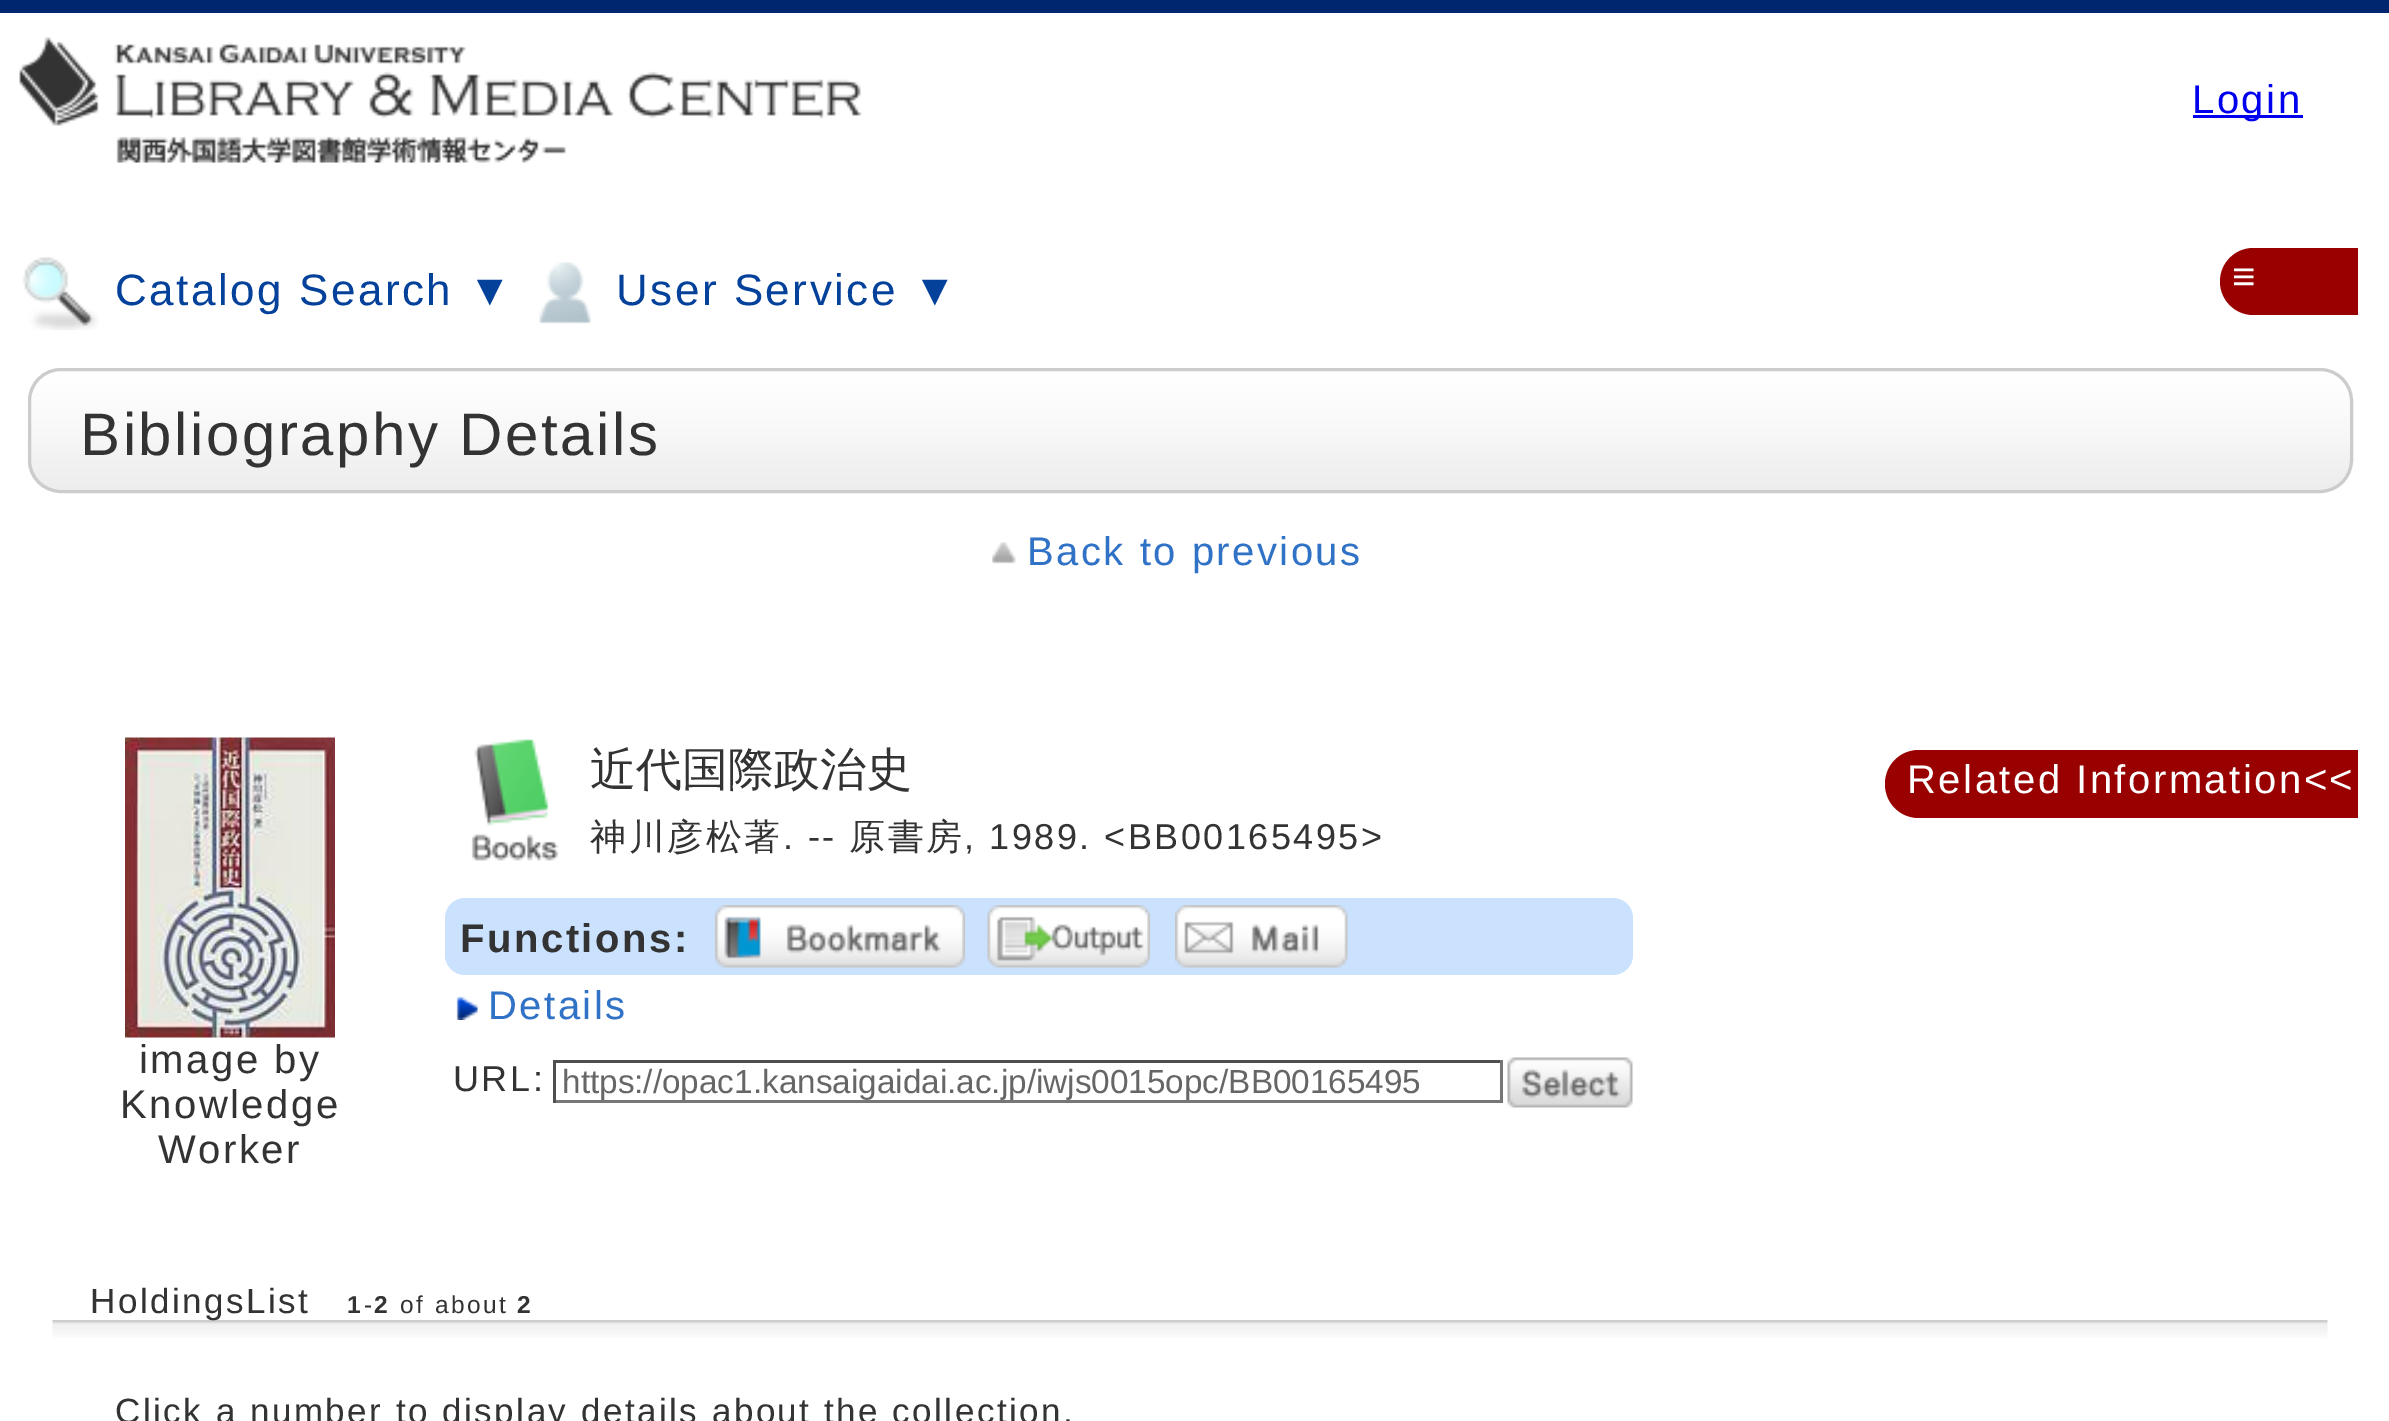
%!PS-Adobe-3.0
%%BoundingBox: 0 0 2389 1421
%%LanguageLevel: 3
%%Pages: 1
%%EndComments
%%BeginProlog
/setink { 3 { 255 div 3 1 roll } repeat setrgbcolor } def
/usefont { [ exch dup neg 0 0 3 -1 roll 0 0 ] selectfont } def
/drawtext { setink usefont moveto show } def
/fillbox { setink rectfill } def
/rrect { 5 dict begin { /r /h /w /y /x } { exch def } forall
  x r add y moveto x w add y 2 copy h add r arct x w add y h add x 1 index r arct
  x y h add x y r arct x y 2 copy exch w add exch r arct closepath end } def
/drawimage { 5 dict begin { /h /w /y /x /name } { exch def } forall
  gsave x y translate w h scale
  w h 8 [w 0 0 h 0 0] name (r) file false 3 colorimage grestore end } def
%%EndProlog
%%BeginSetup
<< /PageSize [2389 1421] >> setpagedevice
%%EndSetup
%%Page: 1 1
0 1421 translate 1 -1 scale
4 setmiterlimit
0 0 2389 1421 255 255 255 fillbox
0 0 2389 13 0 38 111 fillbox
(assets/img1.rgb) 19 37 844 126 drawimage
2193 115 110 3 0 0 238 fillbox
/LiberationSans-Regular 40 usefont
2192 113 moveto 2.5 0 (Login) ashow
(assets/img2.rgb) 22 257 77 73 drawimage
/LiberationSans-Regular 44 usefont
4 65 154 setink
115 305 moveto 2.5 0 (Catalog Search ▼) ashow
(assets/img3.rgb) 539 262 52 62 drawimage
616 305 moveto 2.5 0 (User Service ▼) ashow
153 0 0 setink
2253.5 248 moveto 2358 248 lineto 2358 315 lineto 2253.5 315 lineto 2235 315 2220 300 2220 281.5 curveto 2220 263 2235 248 2253.5 248 curveto closepath fill
/LiberationSans-Regular 40 usefont
255 255 255 setink
2232 290 moveto 2.5 0 (≡) ashow
(assets/img4.rgb) 28 368 2324 122 drawimage
204 204 204 setink
3 setlinewidth
29.5 369.5 2322 122 31.5 rrect stroke
/LiberationSans-Regular 60 usefont
51 51 51 setink
80 455 moveto 2.5 0 (Bibliography Details) ashow
(assets/img5.rgb) 992 542 24 22 drawimage
/LiberationSans-Regular 40 usefont
48 114 197 setink
1027 565 moveto 2.5 0 (Back to previous) ashow
(assets/img6.rgb) 125 737 210 301 drawimage
51 51 51 setink
139 1073 moveto 2.5 0 (image by) ashow
120 1118 moveto 2.5 0 (Knowledge) ashow
158 1163 moveto 2.5 0 (Worker) ashow
(assets/img7.rgb) 471 739 88 122 drawimage
(近代国際政治史) 590 785 /WenQuanYiZenHei-Medium 46 51 51 51 drawtext
/WenQuanYiZenHei-Medium 36 usefont
590 849 moveto 2.5 0 (神川彦松著) ashow
/LiberationSans-Regular 36 usefont
783 849 moveto 2.5 0 (. --) ashow
/WenQuanYiZenHei-Medium 36 usefont
849 849 moveto 2.5 0 (原書房) ashow
/LiberationSans-Regular 36 usefont
964 849 moveto 2.5 0 (, 1989.) ashow
1104 849 moveto 2.5 0 (<BB00165495>) ashow
203 226 255 setink
445 898 1188 77 20 rrect fill
/LiberationSans-Bold 40 usefont
51 51 51 setink
460 952 moveto 2.5 0 (Functions:) ashow
(assets/img8.rgb) 715 905 250 63 drawimage
(assets/img9.rgb) 987 905 163 63 drawimage
(assets/img10.rgb) 1175 905 173 63 drawimage
(assets/img11.rgb) 456 996 22 24 drawimage
/LiberationSans-Regular 40 usefont
48 114 197 setink
488 1019 moveto 2.5 0 (Details) ashow
/LiberationSans-Regular 36 usefont
51 51 51 setink
453 1091 moveto 2.5 0 (URL:) ashow
553 1060 950 3 79 79 79 fillbox
1500 1060 3 43 118 118 118 fillbox
553 1100 950 3 118 118 118 fillbox
553 1060 3 43 79 79 79 fillbox
(https://opac1.kansaigaidai.ac.jp/iwjs0015opc/BB00165495) 562 1093 /LiberationSans-Regular 33.3 102 102 102 drawtext
(assets/img12.rgb) 1507 1057 126 51 drawimage
(assets/img13.rgb) 52 1320 2276 18 drawimage
/LiberationSans-Regular 35 usefont
51 51 51 setink
90 1313 moveto 2.5 0 (HoldingsList) ashow
/LiberationSans-Bold 24.5 usefont
347 1313 moveto 2.5 0 (1) ashow
/LiberationSans-Regular 24.5 usefont
364 1313 moveto 2.5 0 (-) ashow
/LiberationSans-Bold 24.5 usefont
374 1313 moveto 2.5 0 (2) ashow
/LiberationSans-Regular 24.5 usefont
400 1313 moveto 2.5 0 (of about) ashow
/LiberationSans-Bold 24.5 usefont
517 1313 moveto 2.5 0 (2) ashow
/LiberationSans-Regular 35 usefont
115 1423 moveto 2.5 0 (Click a number to display details about the collection.) ashow
153 0 0 setink
1919 750 moveto 2358 750 lineto 2358 818 lineto 1919 818 lineto 1900 818 1885 803 1885 784 curveto 1885 765 1900 750 1919 750 curveto closepath fill
/LiberationSans-Regular 40 usefont
255 255 255 setink
1907 793 moveto 2.5 0 (Related Information<<) ashow
showpage
%%EOF
